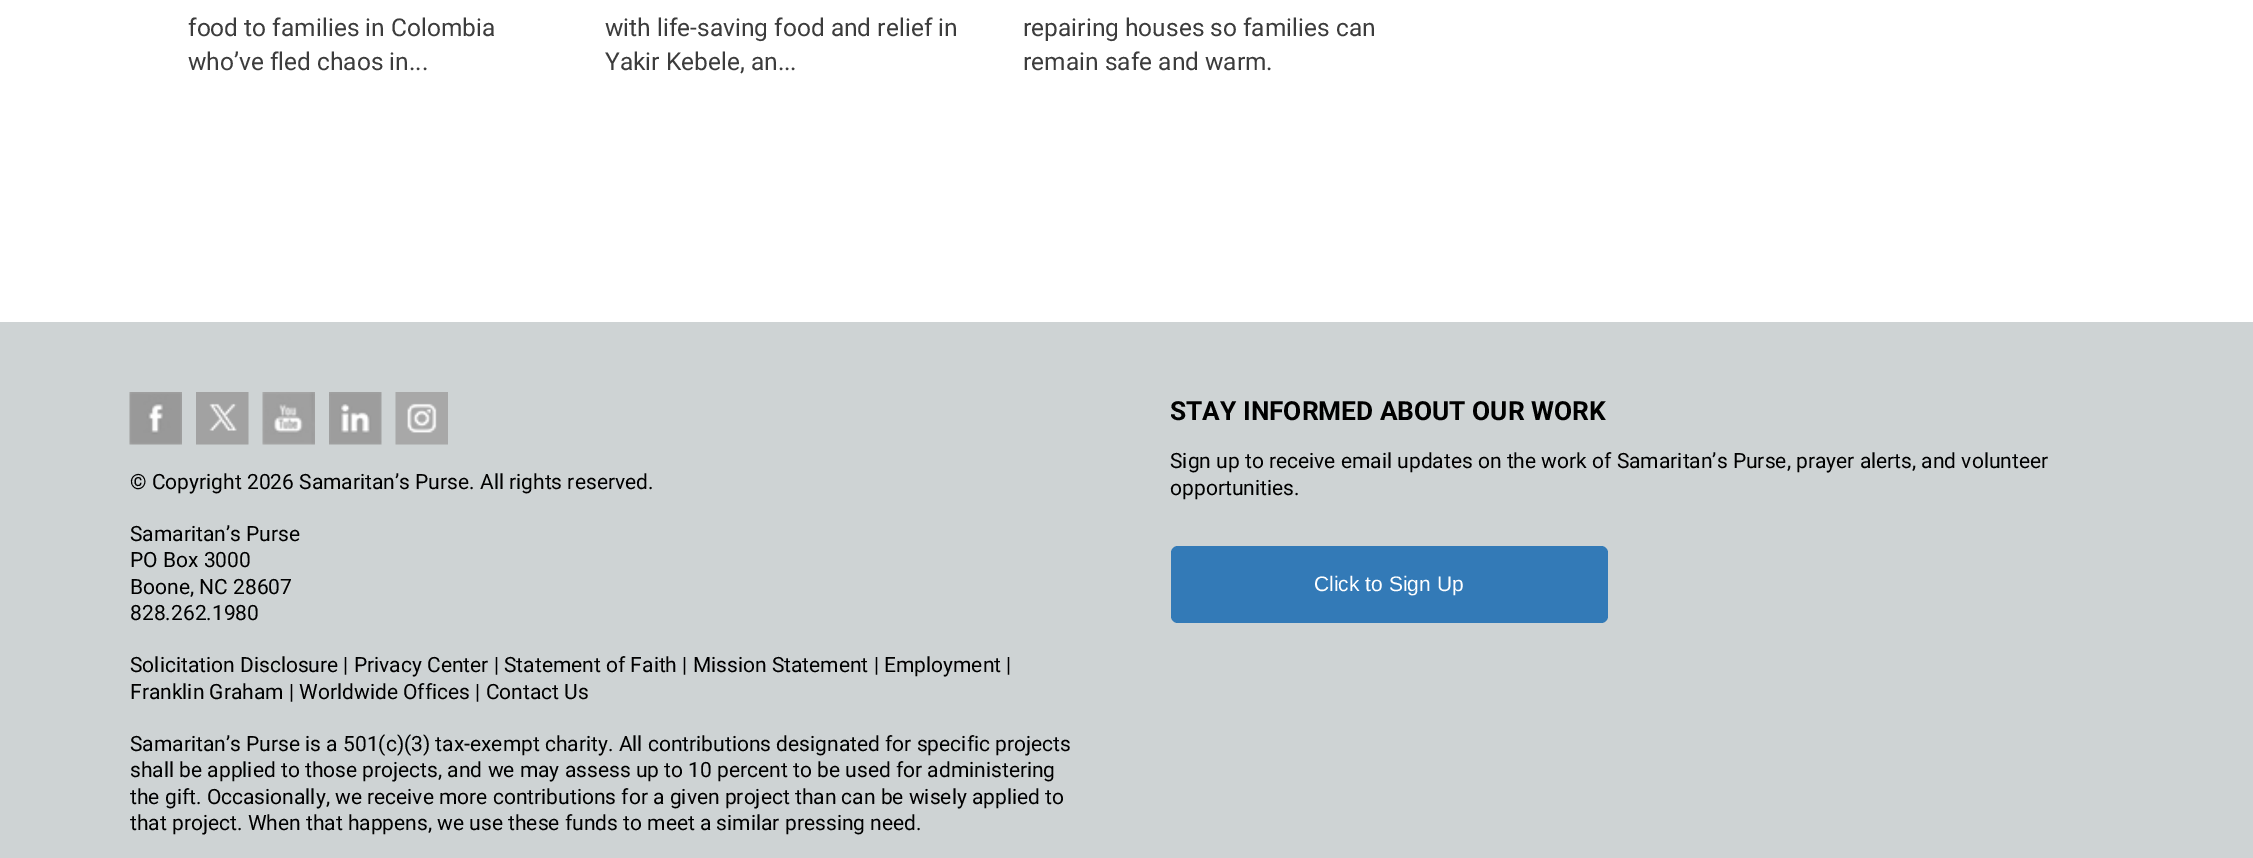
%!PS-Adobe-3.0
%%BoundingBox: 0 0 2253 858
%%LanguageLevel: 3
%%Pages: 1
%%EndComments
%%BeginProlog
/setink { 3 { 255 div 3 1 roll } repeat setrgbcolor } def
/usefont { [ exch dup neg 0 0 3 -1 roll 0 0 ] selectfont } def
/drawtext { setink usefont moveto show } def
/fillbox { setink rectfill } def
/rrect { 5 dict begin { /r /h /w /y /x } { exch def } forall
  x r add y moveto x w add y 2 copy h add r arct x w add y h add x 1 index r arct
  x y h add x y r arct x y 2 copy exch w add exch r arct closepath end } def
/drawimage { 5 dict begin { /h /w /y /x /name } { exch def } forall
  gsave x y translate w h scale
  w h 8 [w 0 0 h 0 0] name (r) file false 3 colorimage grestore end } def
%%EndProlog
%%BeginSetup
<< /PageSize [2253 858] >> setpagedevice
%%EndSetup
%%Page: 1 1
0 858 translate 1 -1 scale
4 setmiterlimit
0 0 2253 858 255 255 255 fillbox
(food to families in Colombia) 188 36 /Roboto-Regular 24.5 60 60 60 drawtext
(who’ve fled chaos in...) 188 70 /Roboto-Regular 24.5 60 60 60 drawtext
(with life-saving food and relief in) 605 36 /Roboto-Regular 24.5 60 60 60 drawtext
(Yakir Kebele, an...) 605 70 /Roboto-Regular 24.5 60 60 60 drawtext
(repairing houses so families can) 1023 36 /Roboto-Regular 24.5 60 60 60 drawtext
(remain safe and warm.) 1023 70 /Roboto-Regular 24.5 60 60 60 drawtext
0 322 2253 536 206 211 212 fillbox
(assets/img1.rgb) 129 392 53 53 drawimage
(assets/img2.rgb) 196 392 53 53 drawimage
(assets/img3.rgb) 262 392 53 53 drawimage
(assets/img4.rgb) 329 392 53 53 drawimage
(assets/img5.rgb) 395 392 53 53 drawimage
(© Copyright 2026 Samaritan’s Purse. All rights reserved.) 130 489 /Roboto-Regular 21 0 0 0 drawtext
(Samaritan’s Purse) 130 541 /Roboto-Regular 21 0 0 0 drawtext
(PO Box 3000) 130 567 /Roboto-Regular 21 0 0 0 drawtext
(Boone, NC 28607) 130 594 /Roboto-Regular 21 0 0 0 drawtext
(828.262.1980) 130 620 /Roboto-Regular 21 0 0 0 drawtext
(Solicitation Disclosure | Privacy Center | Statement of Faith | Mission Statement | Employment |) 130 672 /Roboto-Regular 21 0 0 0 drawtext
(Franklin Graham | Worldwide Offices | Contact Us) 130 699 /Roboto-Regular 21 0 0 0 drawtext
(Samaritan’s Purse is a 501\(c\)\(3\) tax-exempt charity. All contributions designated for specific projects) 130 751 /Roboto-Regular 21 0 0 0 drawtext
(shall be applied to those projects, and we may assess up to 10 percent to be used for administering) 130 777 /Roboto-Regular 21 0 0 0 drawtext
(the gift. Occasionally, we receive more contributions for a given project than can be wisely applied to) 130 804 /Roboto-Regular 21 0 0 0 drawtext
(that project. When that happens, we use these funds to meet a similar pressing need.) 130 830 /Roboto-Regular 21 0 0 0 drawtext
(STAY INFORMED ABOUT OUR WORK) 1170 420 /Roboto-Bold 26.25 0 0 0 drawtext
(Sign up to receive email updates on the work of Samaritan’s Purse, prayer alerts, and volunteer) 1170 468 /Roboto-Regular 21 0 0 0 drawtext
(opportunities.) 1170 495 /Roboto-Regular 21 0 0 0 drawtext
51 122 183 setink
1171 546 437 77 7 rrect fill
(Click to Sign Up) 1314 591 /LiberationSans-Regular 21 255 255 255 drawtext
showpage
%%EOF
